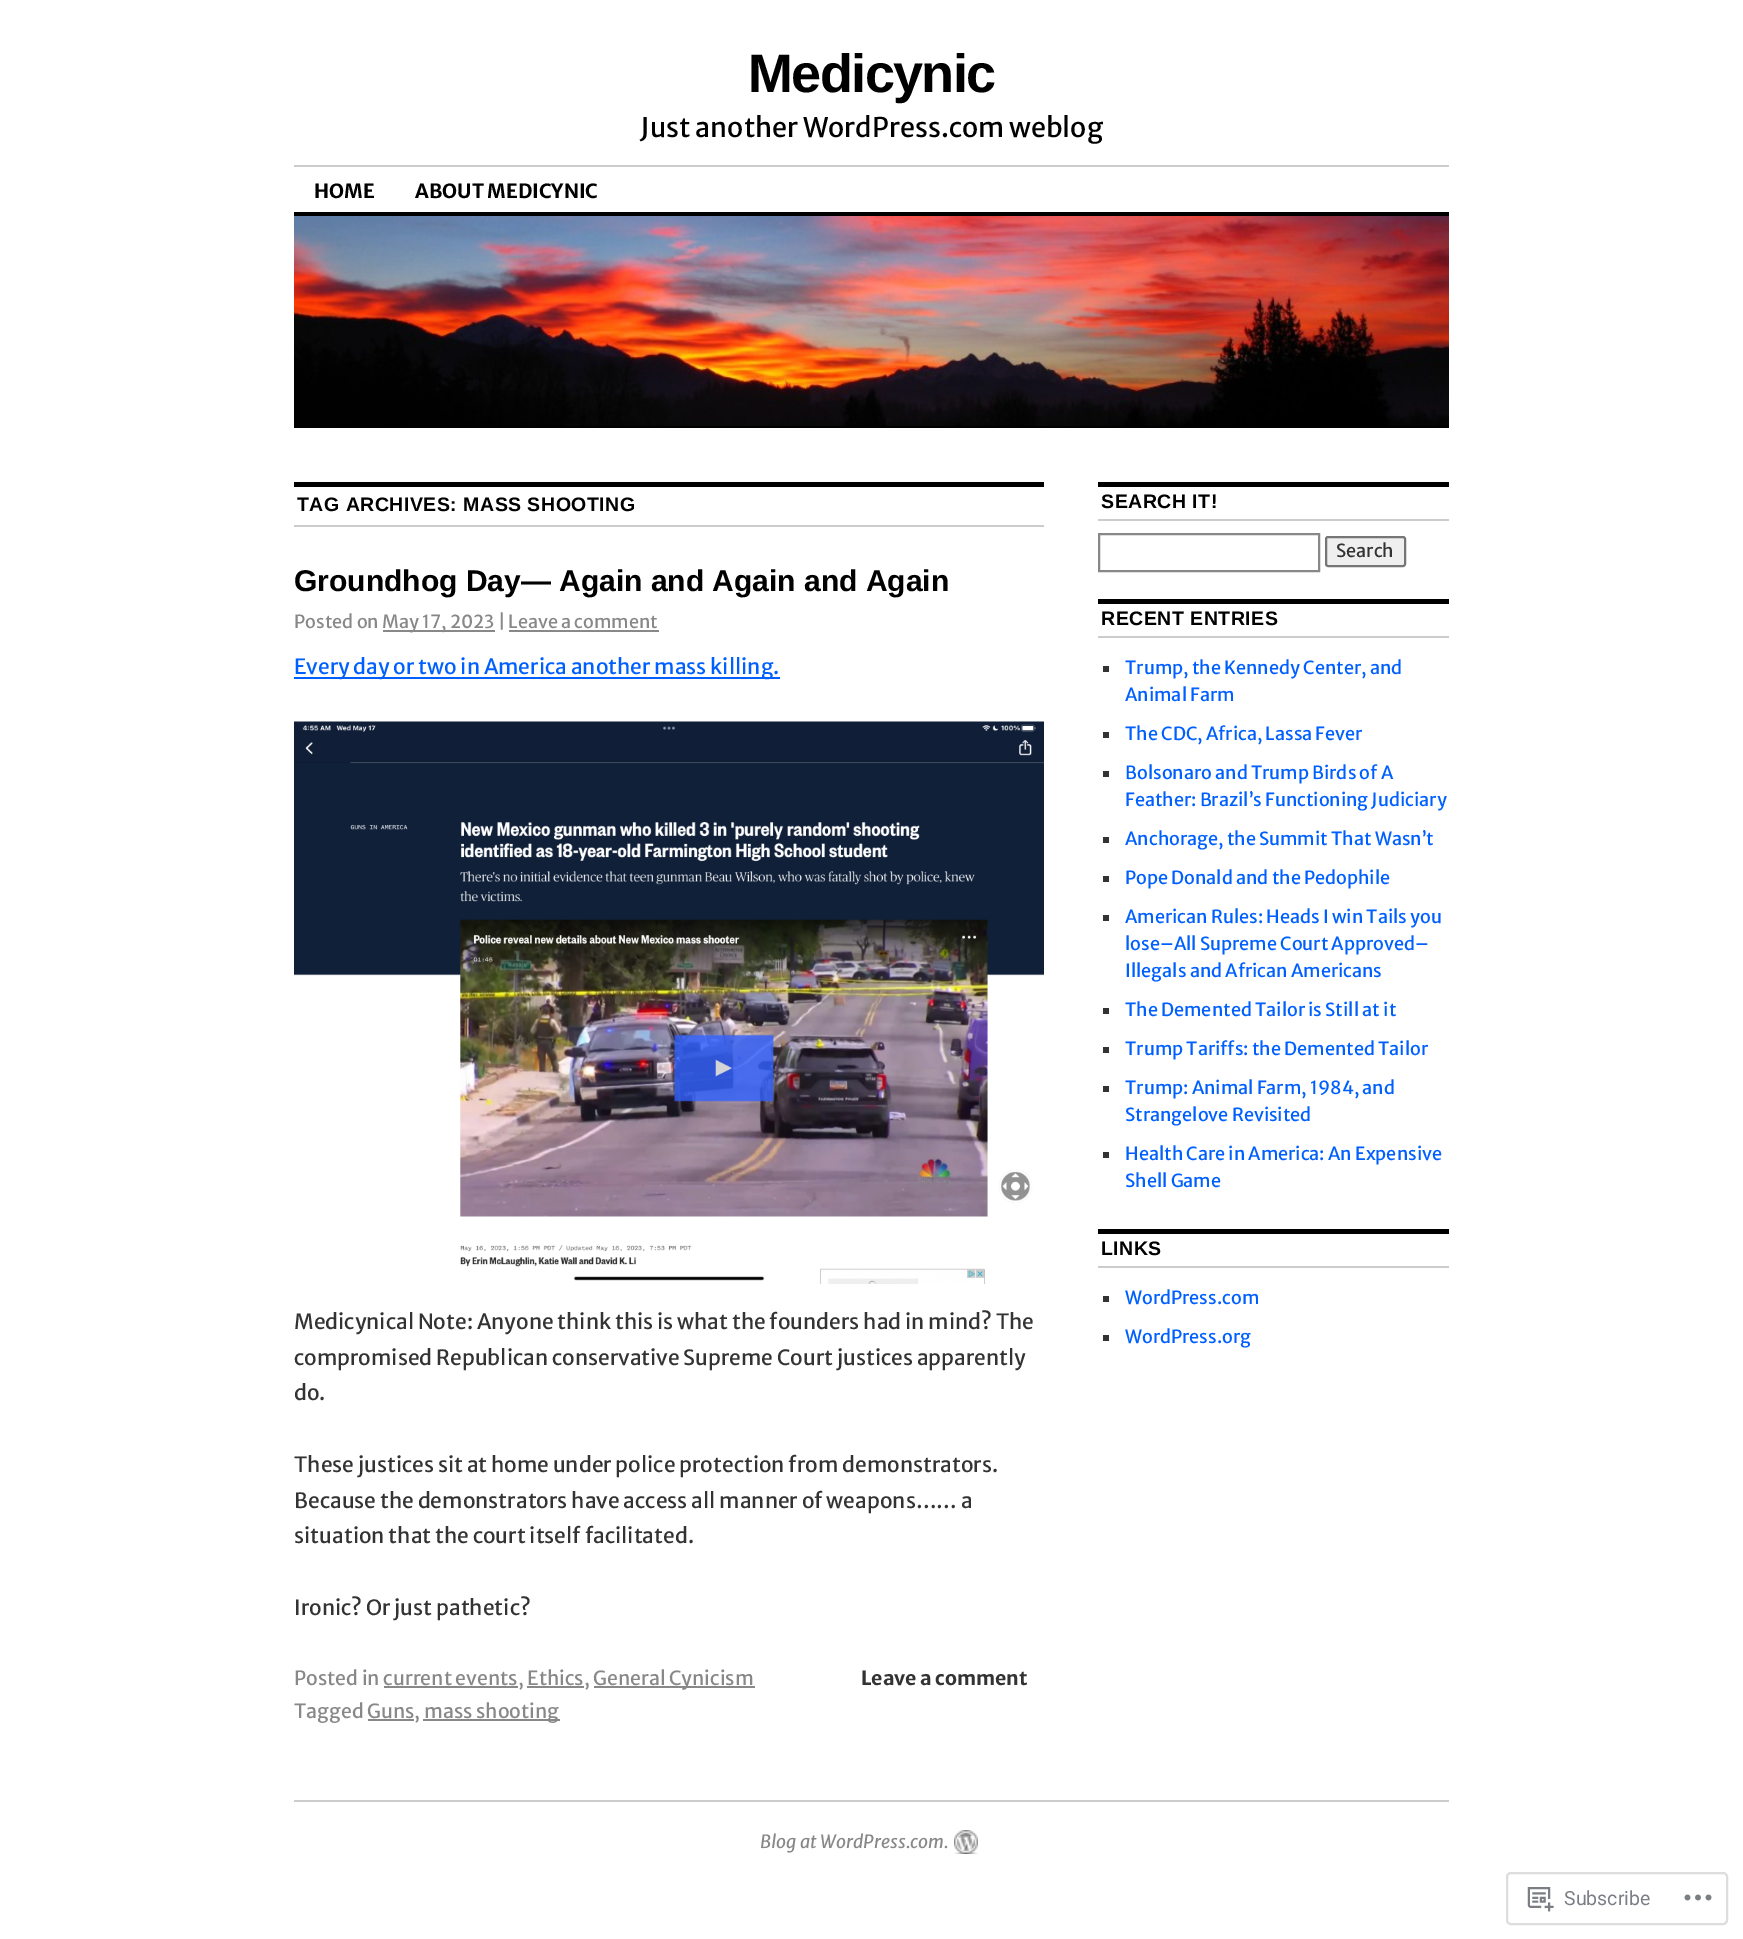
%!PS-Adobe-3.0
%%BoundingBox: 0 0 1743 1939
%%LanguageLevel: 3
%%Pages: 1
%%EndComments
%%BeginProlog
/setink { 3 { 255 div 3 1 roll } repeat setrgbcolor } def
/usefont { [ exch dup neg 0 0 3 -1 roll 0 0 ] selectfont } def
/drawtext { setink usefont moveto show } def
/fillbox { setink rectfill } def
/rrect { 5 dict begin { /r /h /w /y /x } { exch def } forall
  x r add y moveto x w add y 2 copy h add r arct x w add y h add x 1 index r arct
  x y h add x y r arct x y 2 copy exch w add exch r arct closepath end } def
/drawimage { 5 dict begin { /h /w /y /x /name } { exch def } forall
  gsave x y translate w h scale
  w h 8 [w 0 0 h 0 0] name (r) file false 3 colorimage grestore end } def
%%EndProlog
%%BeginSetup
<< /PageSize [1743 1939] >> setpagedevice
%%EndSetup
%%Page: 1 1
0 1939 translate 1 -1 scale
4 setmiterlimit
0 0 1743 1939 255 255 255 fillbox
/LiberationSans-Bold 54 usefont
0 0 0 setink
748 92 moveto -1.6 0 (Medicynic) ashow
(Just another WordPress.com weblog) 640 137 /MerriweatherSans-Regular 27 0 0 0 drawtext
294 165 1155 2 204 204 204 fillbox
(HOME) 314 198 /MerriweatherSans-Bold 19.5 0 0 0 drawtext
(ABOUT MEDICYNIC) 415 198 /MerriweatherSans-Bold 19.5 0 0 0 drawtext
294 212 1155 4 0 0 0 fillbox
(assets/img1.rgb) 294 216 1155 210 drawimage
294 426 1155 2 0 0 0 fillbox
294 482 750 5 0 0 0 fillbox
294 525 750 2 204 204 204 fillbox
/LiberationSans-Bold 19.5 usefont
0 0 0 setink
297 511 moveto 0.5 0 (TAG ARCHIVES: MASS SHOOTING) ashow
(Groundhog Day— Again and Again and Again) 294 591 /LiberationSans-Bold 30 0 0 0 drawtext
(Posted on) 294 628 /MerriweatherSans-Regular 18 136 136 136 drawtext
383 630 112 2 136 136 136 fillbox
(May 17, 2023 | Leave a comment) 382 628 /MerriweatherSans-Regular 18 136 136 136 drawtext
509 630 150 2 136 136 136 fillbox
294 677 486 2 0 96 255 fillbox
(Every day or two in America another mass killing.) 294 674 /MerriweatherSans-Regular 21 0 96 255 drawtext
(assets/img2.rgb) 294 721 750 563 drawimage
(Medicynical Note: Anyone think this is what the founders had in mind? The) 294 1329 /MerriweatherSans-Regular 21 51 51 51 drawtext
(compromised Republican conservative Supreme Court justices apparently) 294 1365 /MerriweatherSans-Regular 21 51 51 51 drawtext
(do.) 294 1400 /MerriweatherSans-Regular 21 51 51 51 drawtext
(These justices sit at home under police protection from demonstrators.) 294 1472 /MerriweatherSans-Regular 21 51 51 51 drawtext
(Because the demonstrators have access all manner of weapons…… a) 294 1508 /MerriweatherSans-Regular 21 51 51 51 drawtext
(situation that the court itself facilitated.) 294 1543 /MerriweatherSans-Regular 21 51 51 51 drawtext
(Ironic? Or just pathetic?) 294 1615 /MerriweatherSans-Regular 21 51 51 51 drawtext
(Posted in current events, Ethics,) 294 1685 /MerriweatherSans-Regular 19.5 136 136 136 drawtext
594 1686 161 2 136 136 136 fillbox
(General Cynicism) 593 1685 /MerriweatherSans-Regular 19.5 136 136 136 drawtext
384 1686 134 2 136 136 136 fillbox
527 1686 57 2 136 136 136 fillbox
(Leave a comment) 861 1685 /MerriweatherSans-Bold 19.5 51 51 51 drawtext
(Tagged Guns,) 294 1718 /MerriweatherSans-Regular 19.5 136 136 136 drawtext
423 1719 137 2 136 136 136 fillbox
(mass shooting) 424 1718 /MerriweatherSans-Regular 19.5 136 136 136 drawtext
368 1719 46 2 136 136 136 fillbox
1098 482 351 5 0 0 0 fillbox
1098 519 351 2 204 204 204 fillbox
/LiberationSans-Bold 19.5 usefont
0 0 0 setink
1101 508 moveto 0.5 0 (SEARCH IT!) ashow
136 136 136 setink
2 setlinewidth
1099 534 220 37 rectstroke
239 239 239 setink
1326 537 79 29 2 rrect gsave fill grestore
118 118 118 setink
stroke
(Search) 1336 557 /MerriweatherSans-Regular 18 51 51 51 drawtext
1098 599 351 5 0 0 0 fillbox
1098 636 351 2 204 204 204 fillbox
/LiberationSans-Bold 19.5 usefont
0 0 0 setink
1101 625 moveto 0.5 0 (RECENT ENTRIES) ashow
1103 666 6 6 51 51 51 fillbox
(Trump, the Kennedy Center, and) 1125 674 /MerriweatherSans-Regular 18 0 96 255 drawtext
(Animal Farm) 1125 701 /MerriweatherSans-Regular 18 0 96 255 drawtext
1103 732 6 6 51 51 51 fillbox
(The CDC, Africa, Lassa Fever) 1125 740 /MerriweatherSans-Regular 18 0 96 255 drawtext
1103 771 6 6 51 51 51 fillbox
(Bolsonaro and Trump Birds of A) 1125 779 /MerriweatherSans-Regular 18 0 96 255 drawtext
(Feather: Brazil’s Functioning Judiciary) 1125 806 /MerriweatherSans-Regular 18 0 96 255 drawtext
1103 837 6 6 51 51 51 fillbox
(Anchorage, the Summit That Wasn’t) 1125 845 /MerriweatherSans-Regular 18 0 96 255 drawtext
1103 876 6 6 51 51 51 fillbox
(Pope Donald and the Pedophile) 1125 884 /MerriweatherSans-Regular 18 0 96 255 drawtext
1103 915 6 6 51 51 51 fillbox
(American Rules: Heads I win Tails you) 1125 923 /MerriweatherSans-Regular 18 0 96 255 drawtext
(lose–All Supreme Court Approved–) 1125 950 /MerriweatherSans-Regular 18 0 96 255 drawtext
(Illegals and African Americans) 1125 977 /MerriweatherSans-Regular 18 0 96 255 drawtext
1103 1008 6 6 51 51 51 fillbox
(The Demented Tailor is Still at it) 1125 1016 /MerriweatherSans-Regular 18 0 96 255 drawtext
1103 1047 6 6 51 51 51 fillbox
(Trump Tariffs: the Demented Tailor) 1125 1055 /MerriweatherSans-Regular 18 0 96 255 drawtext
1103 1086 6 6 51 51 51 fillbox
(Trump: Animal Farm, 1984, and) 1125 1094 /MerriweatherSans-Regular 18 0 96 255 drawtext
(Strangelove Revisited) 1125 1121 /MerriweatherSans-Regular 18 0 96 255 drawtext
1103 1152 6 6 51 51 51 fillbox
(Health Care in America: An Expensive) 1125 1160 /MerriweatherSans-Regular 18 0 96 255 drawtext
(Shell Game) 1125 1187 /MerriweatherSans-Regular 18 0 96 255 drawtext
1098 1229 351 5 0 0 0 fillbox
1098 1266 351 2 204 204 204 fillbox
/LiberationSans-Bold 19.5 usefont
0 0 0 setink
1101 1255 moveto 0.5 0 (LINKS) ashow
1103 1296 6 6 51 51 51 fillbox
(WordPress.com) 1125 1304 /MerriweatherSans-Regular 18 0 96 255 drawtext
1103 1335 6 6 51 51 51 fillbox
(WordPress.org) 1125 1343 /MerriweatherSans-Regular 18 0 96 255 drawtext
294 1800 1155 2 204 204 204 fillbox
(assets/img3.rgb) 954 1830 24 24 drawimage
(Blog at WordPress.com.) 760 1848 /MerriweatherSans-Italic 18 136 136 136 drawtext
221 221 223 setink
1507 1873 220 51 4 rrect stroke
(assets/img4.rgb) 1527 1887 27 25 drawimage
(Subscribe) 1564 1905 /Roboto-Regular 19.5 123 127 133 drawtext
(assets/img5.rgb) 1684 1894 28 7 drawimage
showpage
%%EOF
